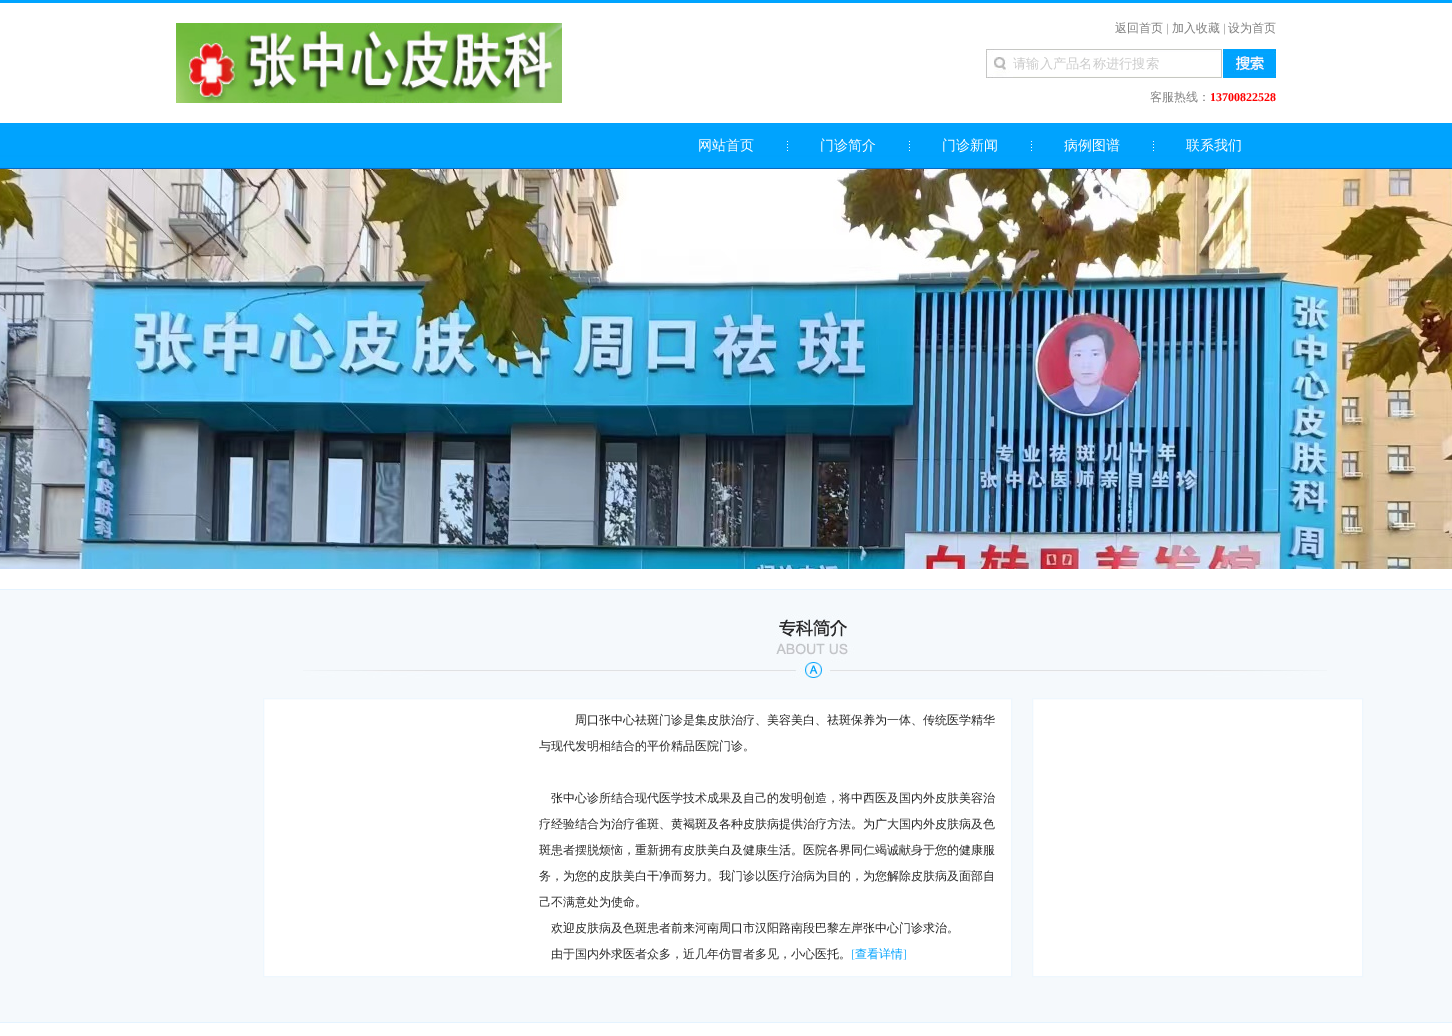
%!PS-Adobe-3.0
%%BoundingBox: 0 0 1452 1036
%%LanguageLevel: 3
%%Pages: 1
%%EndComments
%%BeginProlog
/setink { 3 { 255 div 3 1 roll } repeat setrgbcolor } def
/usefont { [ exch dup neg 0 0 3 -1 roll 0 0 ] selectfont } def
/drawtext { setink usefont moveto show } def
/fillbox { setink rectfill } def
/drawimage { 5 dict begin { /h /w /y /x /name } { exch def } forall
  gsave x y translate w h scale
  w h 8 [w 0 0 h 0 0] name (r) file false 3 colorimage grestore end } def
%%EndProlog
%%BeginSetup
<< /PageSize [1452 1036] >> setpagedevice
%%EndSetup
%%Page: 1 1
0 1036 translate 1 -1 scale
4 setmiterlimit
0 0 1452 1036 255 255 255 fillbox
0 0 1452 3 0 164 255 fillbox
(assets/img1.rgb) 176 23 386 80 drawimage
(返回首页) 1115 32 /WenQuanYiZenHei-Medium 12 128 128 128 drawtext
(|) 1166 32 /LiberationSerif-Regular 12 128 128 128 drawtext
(加入收藏) 1172 32 /WenQuanYiZenHei-Medium 12 128 128 128 drawtext
(|) 1223 32 /LiberationSerif-Regular 12 128 128 128 drawtext
(设为首页) 1228 32 /WenQuanYiZenHei-Medium 12 128 128 128 drawtext
(assets/img2.rgb) 986 49 27 29 drawimage
(assets/img3.rgb) 1013 49 208 29 drawimage
1013 52 208 24 255 255 255 fillbox
(请输入产品名称进行搜索) 1013 68 /WenQuanYiZenHei-Medium 13.25 204 204 204 drawtext
1221 49 1 29 198 198 198 fillbox
(assets/img4.rgb) 1223 49 53 29 drawimage
(客服热线：) 1150 101 /WenQuanYiZenHei-Medium 12 128 128 128 drawtext
(13700822528) 1210 101 /LiberationSerif-Bold 12 255 0 0 drawtext
(assets/img5.rgb) 0 123 1452 46 drawimage
(网站首页) 698 150 /WenQuanYiZenHei-Medium 14 255 255 255 drawtext
(assets/img6.rgb) 787 141 1 10 drawimage
(门诊简介) 820 150 /WenQuanYiZenHei-Medium 14 255 255 255 drawtext
(assets/img6.rgb) 909 141 1 10 drawimage
(门诊新闻) 942 150 /WenQuanYiZenHei-Medium 14 255 255 255 drawtext
(assets/img6.rgb) 1031 141 1 10 drawimage
(病例图谱) 1064 150 /WenQuanYiZenHei-Medium 14 255 255 255 drawtext
(assets/img6.rgb) 1153 141 1 10 drawimage
(联系我们) 1186 150 /WenQuanYiZenHei-Medium 14 255 255 255 drawtext
(assets/img7.rgb) 0 169 1452 400 drawimage
0 589 1452 1 228 243 255 fillbox
0 590 1452 432 245 249 252 fillbox
(assets/img8.rgb) 303 614 1024 64 drawimage
255 255 255 setink
263.5 698.5 moveto 1011.5 698.5 lineto 1011.5 976.5 lineto 263.5 976.5 lineto closepath gsave fill grestore
238 247 254 setink
stroke
(周口张中心祛斑门诊是集皮肤治疗、美容美白、祛斑保养为一体、传统医学精华) 575 724 /WenQuanYiZenHei-Medium 12 41 41 41 drawtext
(与现代发明相结合的平价精品医院门诊。) 539 750 /WenQuanYiZenHei-Medium 12 41 41 41 drawtext
(张中心诊所结合现代医学技术成果及自己的发明创造，将中西医及国内外皮肤美容治) 551 802 /WenQuanYiZenHei-Medium 12 41 41 41 drawtext
(疗经验结合为治疗雀斑、黄褐斑及各种皮肤病提供治疗方法。为广大国内外皮肤病及色) 539 828 /WenQuanYiZenHei-Medium 12 41 41 41 drawtext
(斑患者摆脱烦恼，重新拥有皮肤美白及健康生活。医院各界同仁竭诚献身于您的健康服) 539 854 /WenQuanYiZenHei-Medium 12 41 41 41 drawtext
(务，为您的皮肤美白干净而努力。我门诊以医疗治病为目的，为您解除皮肤病及面部自) 539 880 /WenQuanYiZenHei-Medium 12 41 41 41 drawtext
(己不满意处为使命。) 539 906 /WenQuanYiZenHei-Medium 12 41 41 41 drawtext
(欢迎皮肤病及色斑患者前来河南周口市汉阳路南段巴黎左岸张中心门诊求治。) 551 932 /WenQuanYiZenHei-Medium 12 41 41 41 drawtext
(由于国内外求医者众多，近几年仿冒者多见，小心医托。) 551 958 /WenQuanYiZenHei-Medium 12 41 41 41 drawtext
([) 851 958 /LiberationSerif-Regular 12 0 163 254 drawtext
(查看详情) 855 958 /WenQuanYiZenHei-Medium 12 0 163 254 drawtext
(]) 903 958 /LiberationSerif-Regular 12 0 163 254 drawtext
255 255 255 setink
1032.5 698.5 moveto 1362.5 698.5 lineto 1362.5 976.5 lineto 1032.5 976.5 lineto closepath gsave fill grestore
238 247 254 setink
stroke
0 1022 1452 1 228 243 255 fillbox
showpage
%%EOF
